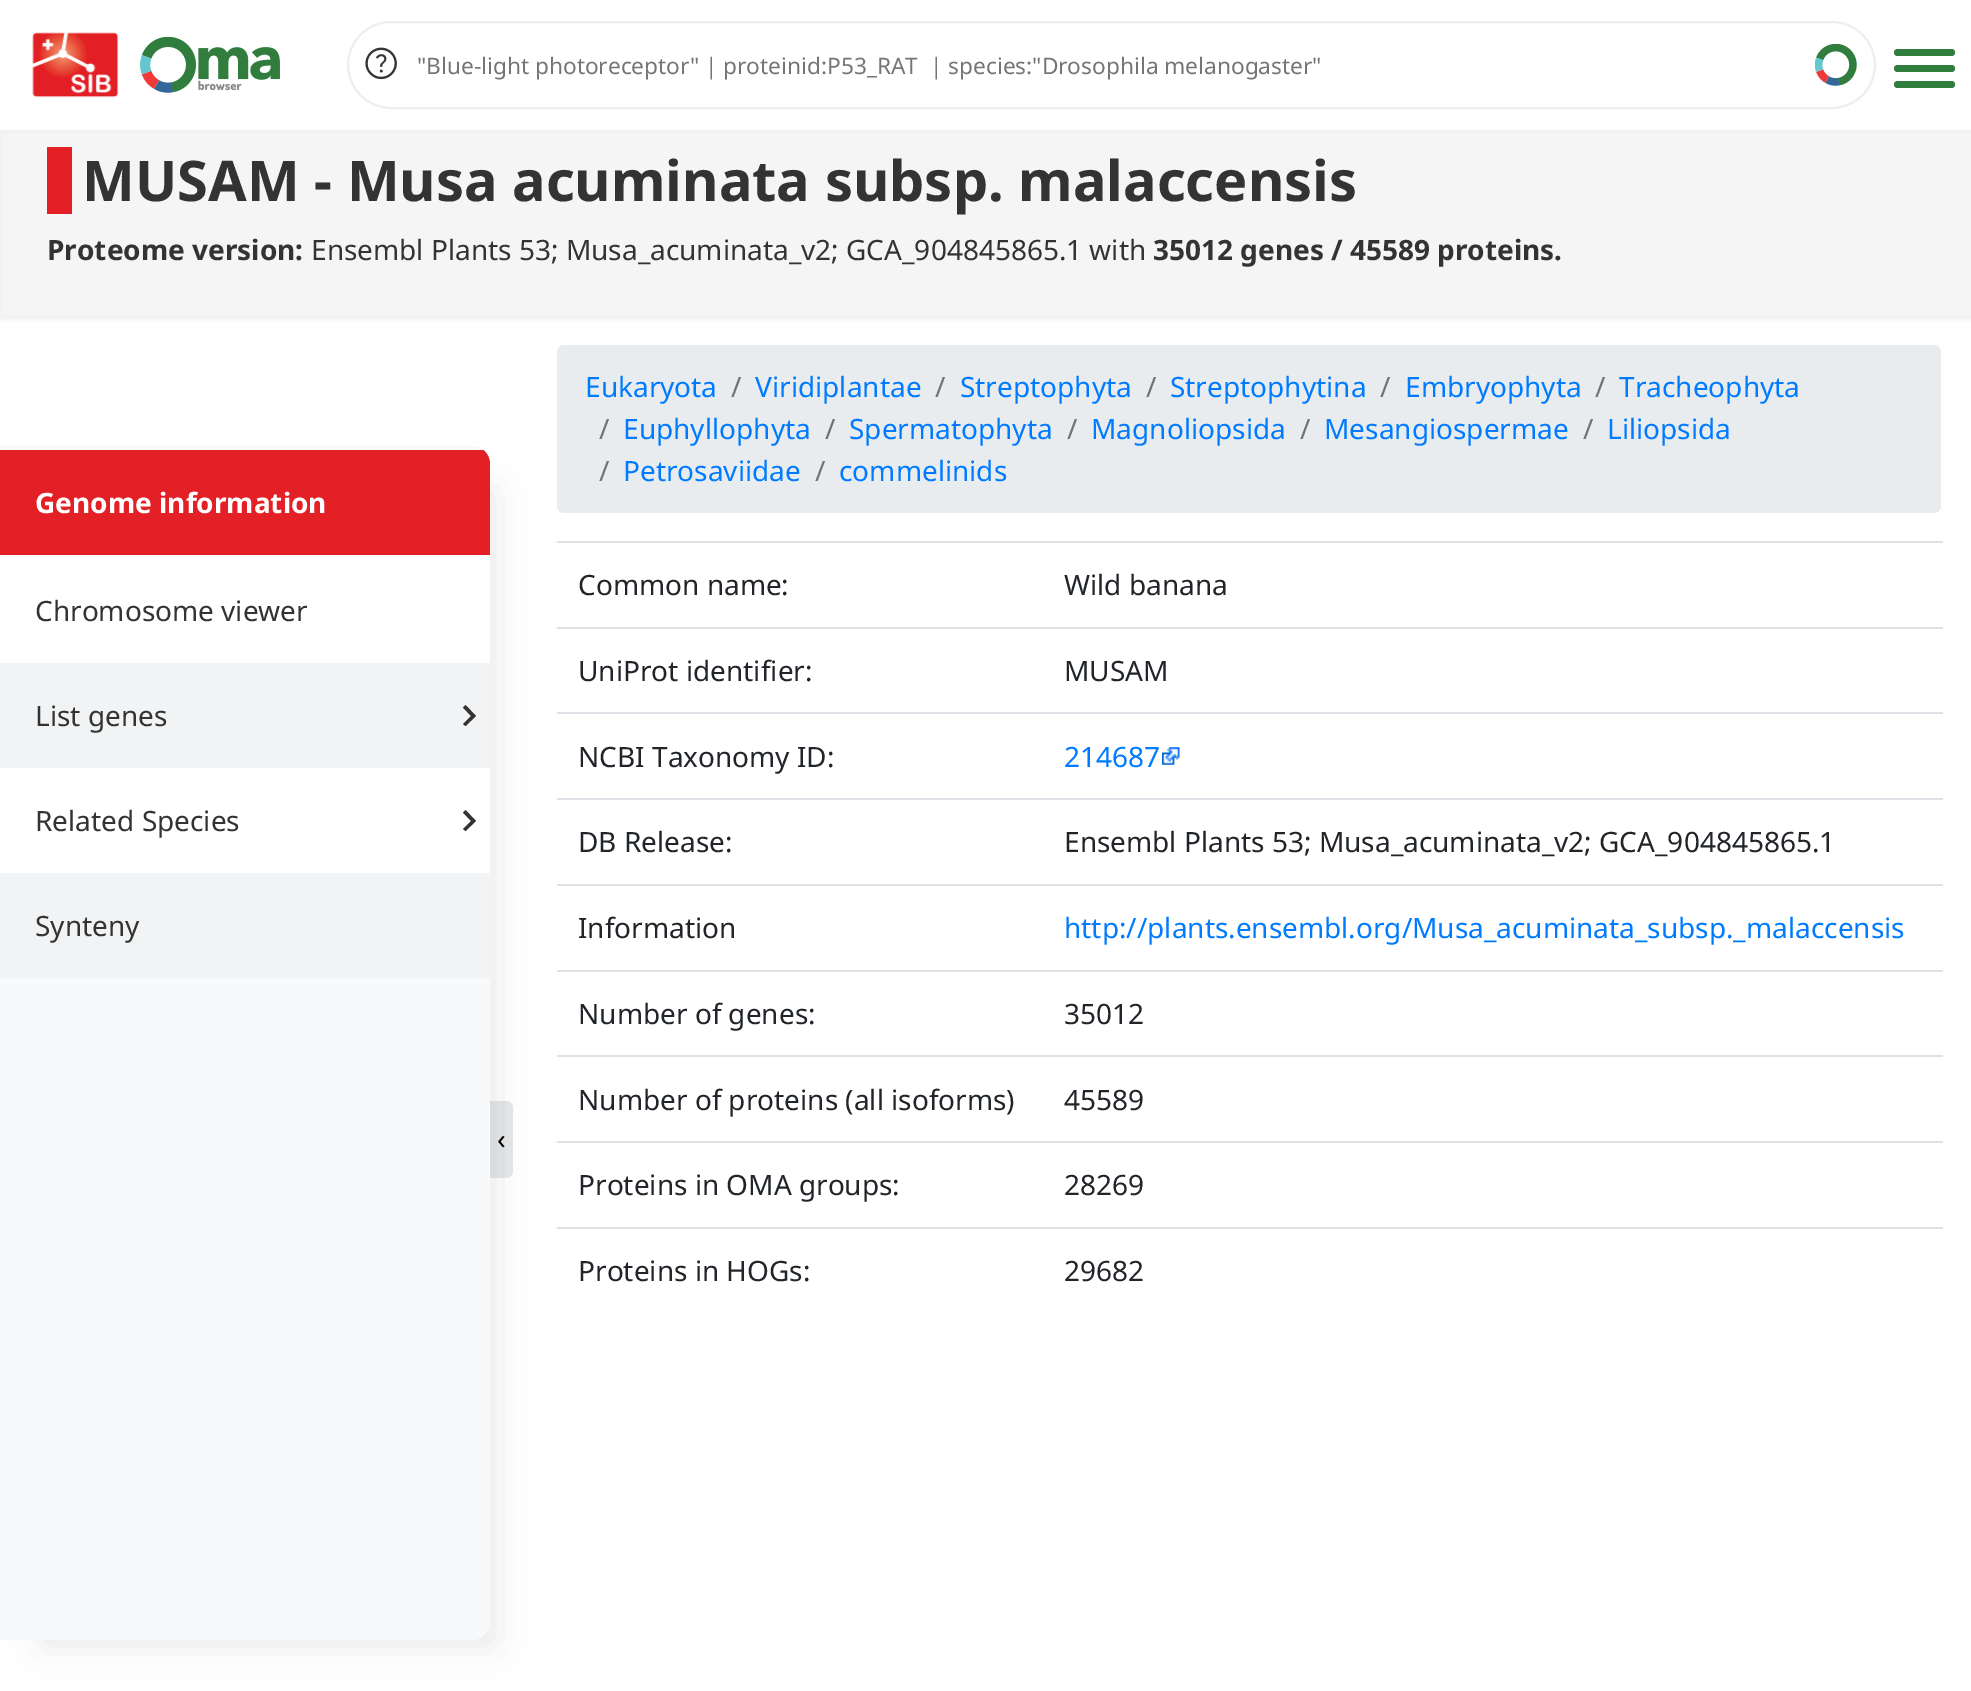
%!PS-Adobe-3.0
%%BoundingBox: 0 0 1971 1691
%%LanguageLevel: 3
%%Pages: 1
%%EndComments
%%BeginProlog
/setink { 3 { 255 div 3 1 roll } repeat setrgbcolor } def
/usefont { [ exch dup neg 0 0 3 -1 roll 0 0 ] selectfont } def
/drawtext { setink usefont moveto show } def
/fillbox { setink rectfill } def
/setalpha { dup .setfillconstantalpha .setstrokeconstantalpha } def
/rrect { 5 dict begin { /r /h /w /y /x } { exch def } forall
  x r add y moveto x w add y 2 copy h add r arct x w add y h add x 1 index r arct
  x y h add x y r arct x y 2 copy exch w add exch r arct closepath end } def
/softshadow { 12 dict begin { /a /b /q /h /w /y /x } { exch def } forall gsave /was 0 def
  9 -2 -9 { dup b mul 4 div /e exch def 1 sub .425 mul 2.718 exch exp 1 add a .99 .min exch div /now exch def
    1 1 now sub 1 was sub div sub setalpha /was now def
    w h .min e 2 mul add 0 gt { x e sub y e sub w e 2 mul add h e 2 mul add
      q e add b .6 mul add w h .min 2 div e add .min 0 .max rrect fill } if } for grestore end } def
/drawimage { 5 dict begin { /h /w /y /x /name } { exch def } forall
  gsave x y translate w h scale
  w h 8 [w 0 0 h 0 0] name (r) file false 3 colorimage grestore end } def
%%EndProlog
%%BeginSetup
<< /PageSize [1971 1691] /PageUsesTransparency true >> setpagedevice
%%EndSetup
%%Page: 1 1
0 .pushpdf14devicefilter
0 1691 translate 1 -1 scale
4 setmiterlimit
0 0 1971 1691 255 255 255 fillbox
0 0 0 setink
-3 128 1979 192 0 2 0.05 softshadow
0 126 1971 4 255 255 255 fillbox
(assets/img1.rgb) 32 32 87 66 drawimage
(assets/img2.rgb) 140 37 140 56 drawimage
238 238 238 setink
2 setlinewidth
348 22 1527 86 43 rrect stroke
(assets/img3.rgb) 365 47 32 33 drawimage
("Blue-light photoreceptor" | proteinid:P53_RAT  | species:"Drosophila melanogaster") 417 74 /NotoSans-Regular 22.7 117 117 117 drawtext
(assets/img4.rgb) 1815 44 42 42 drawimage
49 125 61 setink
1894 49 61 7 3.5 rrect fill
1894 65 61 7 3.5 rrect fill
1894 81 61 7 3.5 rrect fill
2 133 1969 182 245 245 245 fillbox
47 147 25 67 227 32 38 fillbox
(MUSAM - Musa acuminata subsp. malaccensis) 82 201 /NotoSans-Bold 56 51 51 51 drawtext
(Proteome version:) 47 260 /NotoSans-Bold 28 51 51 51 drawtext
(Ensembl Plants 53; Musa_acuminata_v2; GCA_904845865.1 with) 311 260 /NotoSans-Regular 28 51 51 51 drawtext
(35012 genes / 45589 proteins.) 1153 260 /NotoSans-Bold 28 51 51 51 drawtext
230 231 232 setink
490 1101 moveto 506 1101 lineto 510 1101 513 1104 513 1108 curveto 513 1171 lineto 513 1175 510 1178 506 1178 curveto 490 1178 lineto closepath fill
0 0 0 setink
44 492 448 1151 0 17.5 0.1 softshadow
248 249 250 setink
0 446 moveto 472 446 lineto 482 446 490 454 490 464 curveto 490 1622 lineto 490 1632 482 1640 472 1640 curveto 0 1640 lineto closepath fill
227 32 38 setink
0 446 moveto 472 446 lineto 482 446 490 454 490 464 curveto 490 558 lineto 0 558 lineto closepath fill
gsave
0 446 moveto 472 446 lineto 482 446 490 454 490 464 curveto 490 1622 lineto 490 1632 482 1640 472 1640 curveto 0 1640 lineto closepath clip newpath
0 446 490 4 248 249 250 fillbox
grestore
0 555 490 3 248 249 250 fillbox
(Genome information) 35 513 /NotoSans-Bold 28 255 255 255 drawtext
0 558 490 105 255 255 255 fillbox
(Chromosome viewer) 35 621 /NotoSans-Regular 28 51 51 51 drawtext
0 663 490 105 241 243 244 fillbox
(List genes) 35 726 /NotoSans-Regular 28 51 51 51 drawtext
463 724 moveto 471 716 lineto 463 707.5 lineto 465.5 705 lineto 476 716 lineto 465.5 726 lineto closepath fill
0 768 490 105 255 255 255 fillbox
(Related Species) 35 831 /NotoSans-Regular 28 51 51 51 drawtext
463 829 moveto 471 821 lineto 463 812.5 lineto 465.5 810 lineto 476 821 lineto 465.5 831 lineto closepath fill
0 873 490 105 241 243 244 fillbox
(Synteny) 35 936 /NotoSans-Regular 28 51 51 51 drawtext
233 236 239 setink
557 345 1384 168 7 rrect fill
(Eukaryota) 585 397 /NotoSans-Regular 28 0 123 255 drawtext
(/) 731 397 /NotoSans-Regular 28 108 117 125 drawtext
(Viridiplantae) 755 397 /NotoSans-Regular 28 0 123 255 drawtext
(/) 935 397 /NotoSans-Regular 28 108 117 125 drawtext
(Streptophyta) 960 397 /NotoSans-Regular 28 0 123 255 drawtext
(/) 1146 397 /NotoSans-Regular 28 108 117 125 drawtext
(Streptophytina) 1170 397 /NotoSans-Regular 28 0 123 255 drawtext
(/) 1380 397 /NotoSans-Regular 28 108 117 125 drawtext
(Embryophyta) 1405 397 /NotoSans-Regular 28 0 123 255 drawtext
(/) 1595 397 /NotoSans-Regular 28 108 117 125 drawtext
(Tracheophyta) 1619 397 /NotoSans-Regular 28 0 123 255 drawtext
(/) 599 439 /NotoSans-Regular 28 108 117 125 drawtext
(Euphyllophyta) 623 439 /NotoSans-Regular 28 0 123 255 drawtext
(/) 825 439 /NotoSans-Regular 28 108 117 125 drawtext
(Spermatophyta) 849 439 /NotoSans-Regular 28 0 123 255 drawtext
(/) 1067 439 /NotoSans-Regular 28 108 117 125 drawtext
(Magnoliopsida) 1091 439 /NotoSans-Regular 28 0 123 255 drawtext
(/) 1300 439 /NotoSans-Regular 28 108 117 125 drawtext
(Mesangiospermae) 1324 439 /NotoSans-Regular 28 0 123 255 drawtext
(/) 1583 439 /NotoSans-Regular 28 108 117 125 drawtext
(Liliopsida) 1607 439 /NotoSans-Regular 28 0 123 255 drawtext
(/) 599 481 /NotoSans-Regular 28 108 117 125 drawtext
(Petrosaviidae) 623 481 /NotoSans-Regular 28 0 123 255 drawtext
(/) 815 481 /NotoSans-Regular 28 108 117 125 drawtext
(commelinids) 839 481 /NotoSans-Regular 28 0 123 255 drawtext
(Common name:) 578 595 /NotoSans-Regular 28 33 37 41 drawtext
557 541 1386 2 222 226 230 fillbox
(Wild banana) 1064 595 /NotoSans-Regular 28 33 37 41 drawtext
(UniProt identifier:) 578 681 /NotoSans-Regular 28 33 37 41 drawtext
557 627 1386 2 222 226 230 fillbox
(MUSAM) 1064 681 /NotoSans-Regular 28 33 37 41 drawtext
(NCBI Taxonomy ID:) 578 767 /NotoSans-Regular 28 33 37 41 drawtext
557 712 1386 2 222 226 230 fillbox
(214687) 1064 767 /NotoSans-Regular 28 0 123 255 drawtext
(assets/img5.rgb) 1162 747 18 18 drawimage
(DB Release:) 578 852 /NotoSans-Regular 28 33 37 41 drawtext
557 798 1386 2 222 226 230 fillbox
(Ensembl Plants 53; Musa_acuminata_v2; GCA_904845865.1) 1064 852 /NotoSans-Regular 28 33 37 41 drawtext
(Information) 578 938 /NotoSans-Regular 28 33 37 41 drawtext
557 884 1386 2 222 226 230 fillbox
(http://plants.ensembl.org/Musa_acuminata_subsp._malaccensis) 1064 938 /NotoSans-Regular 28 0 123 255 drawtext
(Number of genes:) 578 1024 /NotoSans-Regular 28 33 37 41 drawtext
557 970 1386 2 222 226 230 fillbox
(35012) 1064 1024 /NotoSans-Regular 28 33 37 41 drawtext
(Number of proteins \(all isoforms\)) 578 1110 /NotoSans-Regular 28 33 37 41 drawtext
557 1055 1386 2 222 226 230 fillbox
(45589) 1064 1110 /NotoSans-Regular 28 33 37 41 drawtext
(Proteins in OMA groups:) 578 1195 /NotoSans-Regular 28 33 37 41 drawtext
557 1141 1386 2 222 226 230 fillbox
(28269) 1064 1195 /NotoSans-Regular 28 33 37 41 drawtext
(Proteins in HOGs:) 578 1281 /NotoSans-Regular 28 33 37 41 drawtext
557 1227 1386 2 222 226 230 fillbox
(29682) 1064 1281 /NotoSans-Regular 28 33 37 41 drawtext
(‹) 497 1149 /NotoSans-Regular 28 0 0 0 drawtext
.poppdf14devicefilter showpage
%%EOF
